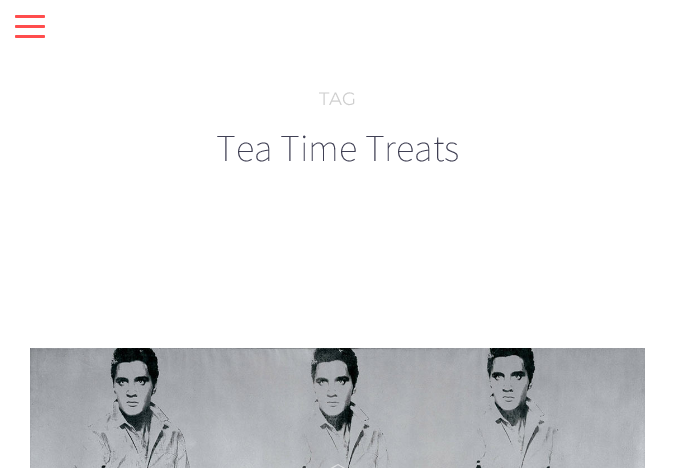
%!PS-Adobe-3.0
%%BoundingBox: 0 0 675 468
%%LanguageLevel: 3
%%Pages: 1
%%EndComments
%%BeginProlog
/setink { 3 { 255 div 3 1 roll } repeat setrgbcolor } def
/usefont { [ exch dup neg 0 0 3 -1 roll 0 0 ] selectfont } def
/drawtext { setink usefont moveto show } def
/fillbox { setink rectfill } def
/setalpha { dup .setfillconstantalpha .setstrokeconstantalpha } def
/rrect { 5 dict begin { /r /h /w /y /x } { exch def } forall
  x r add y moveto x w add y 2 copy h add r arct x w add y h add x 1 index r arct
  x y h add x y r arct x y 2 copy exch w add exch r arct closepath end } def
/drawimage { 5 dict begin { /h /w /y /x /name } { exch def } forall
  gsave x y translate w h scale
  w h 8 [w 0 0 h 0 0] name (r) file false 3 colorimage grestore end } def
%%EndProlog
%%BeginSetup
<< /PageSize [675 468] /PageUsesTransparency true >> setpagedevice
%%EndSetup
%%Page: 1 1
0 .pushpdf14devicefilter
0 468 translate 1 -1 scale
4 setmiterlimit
0 0 675 468 255 255 255 fillbox
255 77 77 setink
15 25 30 3 1.5 rrect fill
15 15 30 3 1.5 rrect fill
15 35 30 3 1.5 rrect fill
(TAG) 319 105 /Montserrat-Thin 18 206 206 206 drawtext
(Tea Time Treats) 216 161 /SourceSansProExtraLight-ExtraLight 38 63 63 83 drawtext
(assets/img1.rgb) 30 348 615 120 drawimage
0.5 setalpha
255 255 255 setink
338 465 moveto 364 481 lineto 364 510 lineto 338 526 lineto 311 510 lineto 311 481 lineto closepath 338 464 moveto 310 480 lineto 310 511 lineto 338 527 lineto 365 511 lineto 365 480 lineto closepath fill
.poppdf14devicefilter showpage
%%EOF
